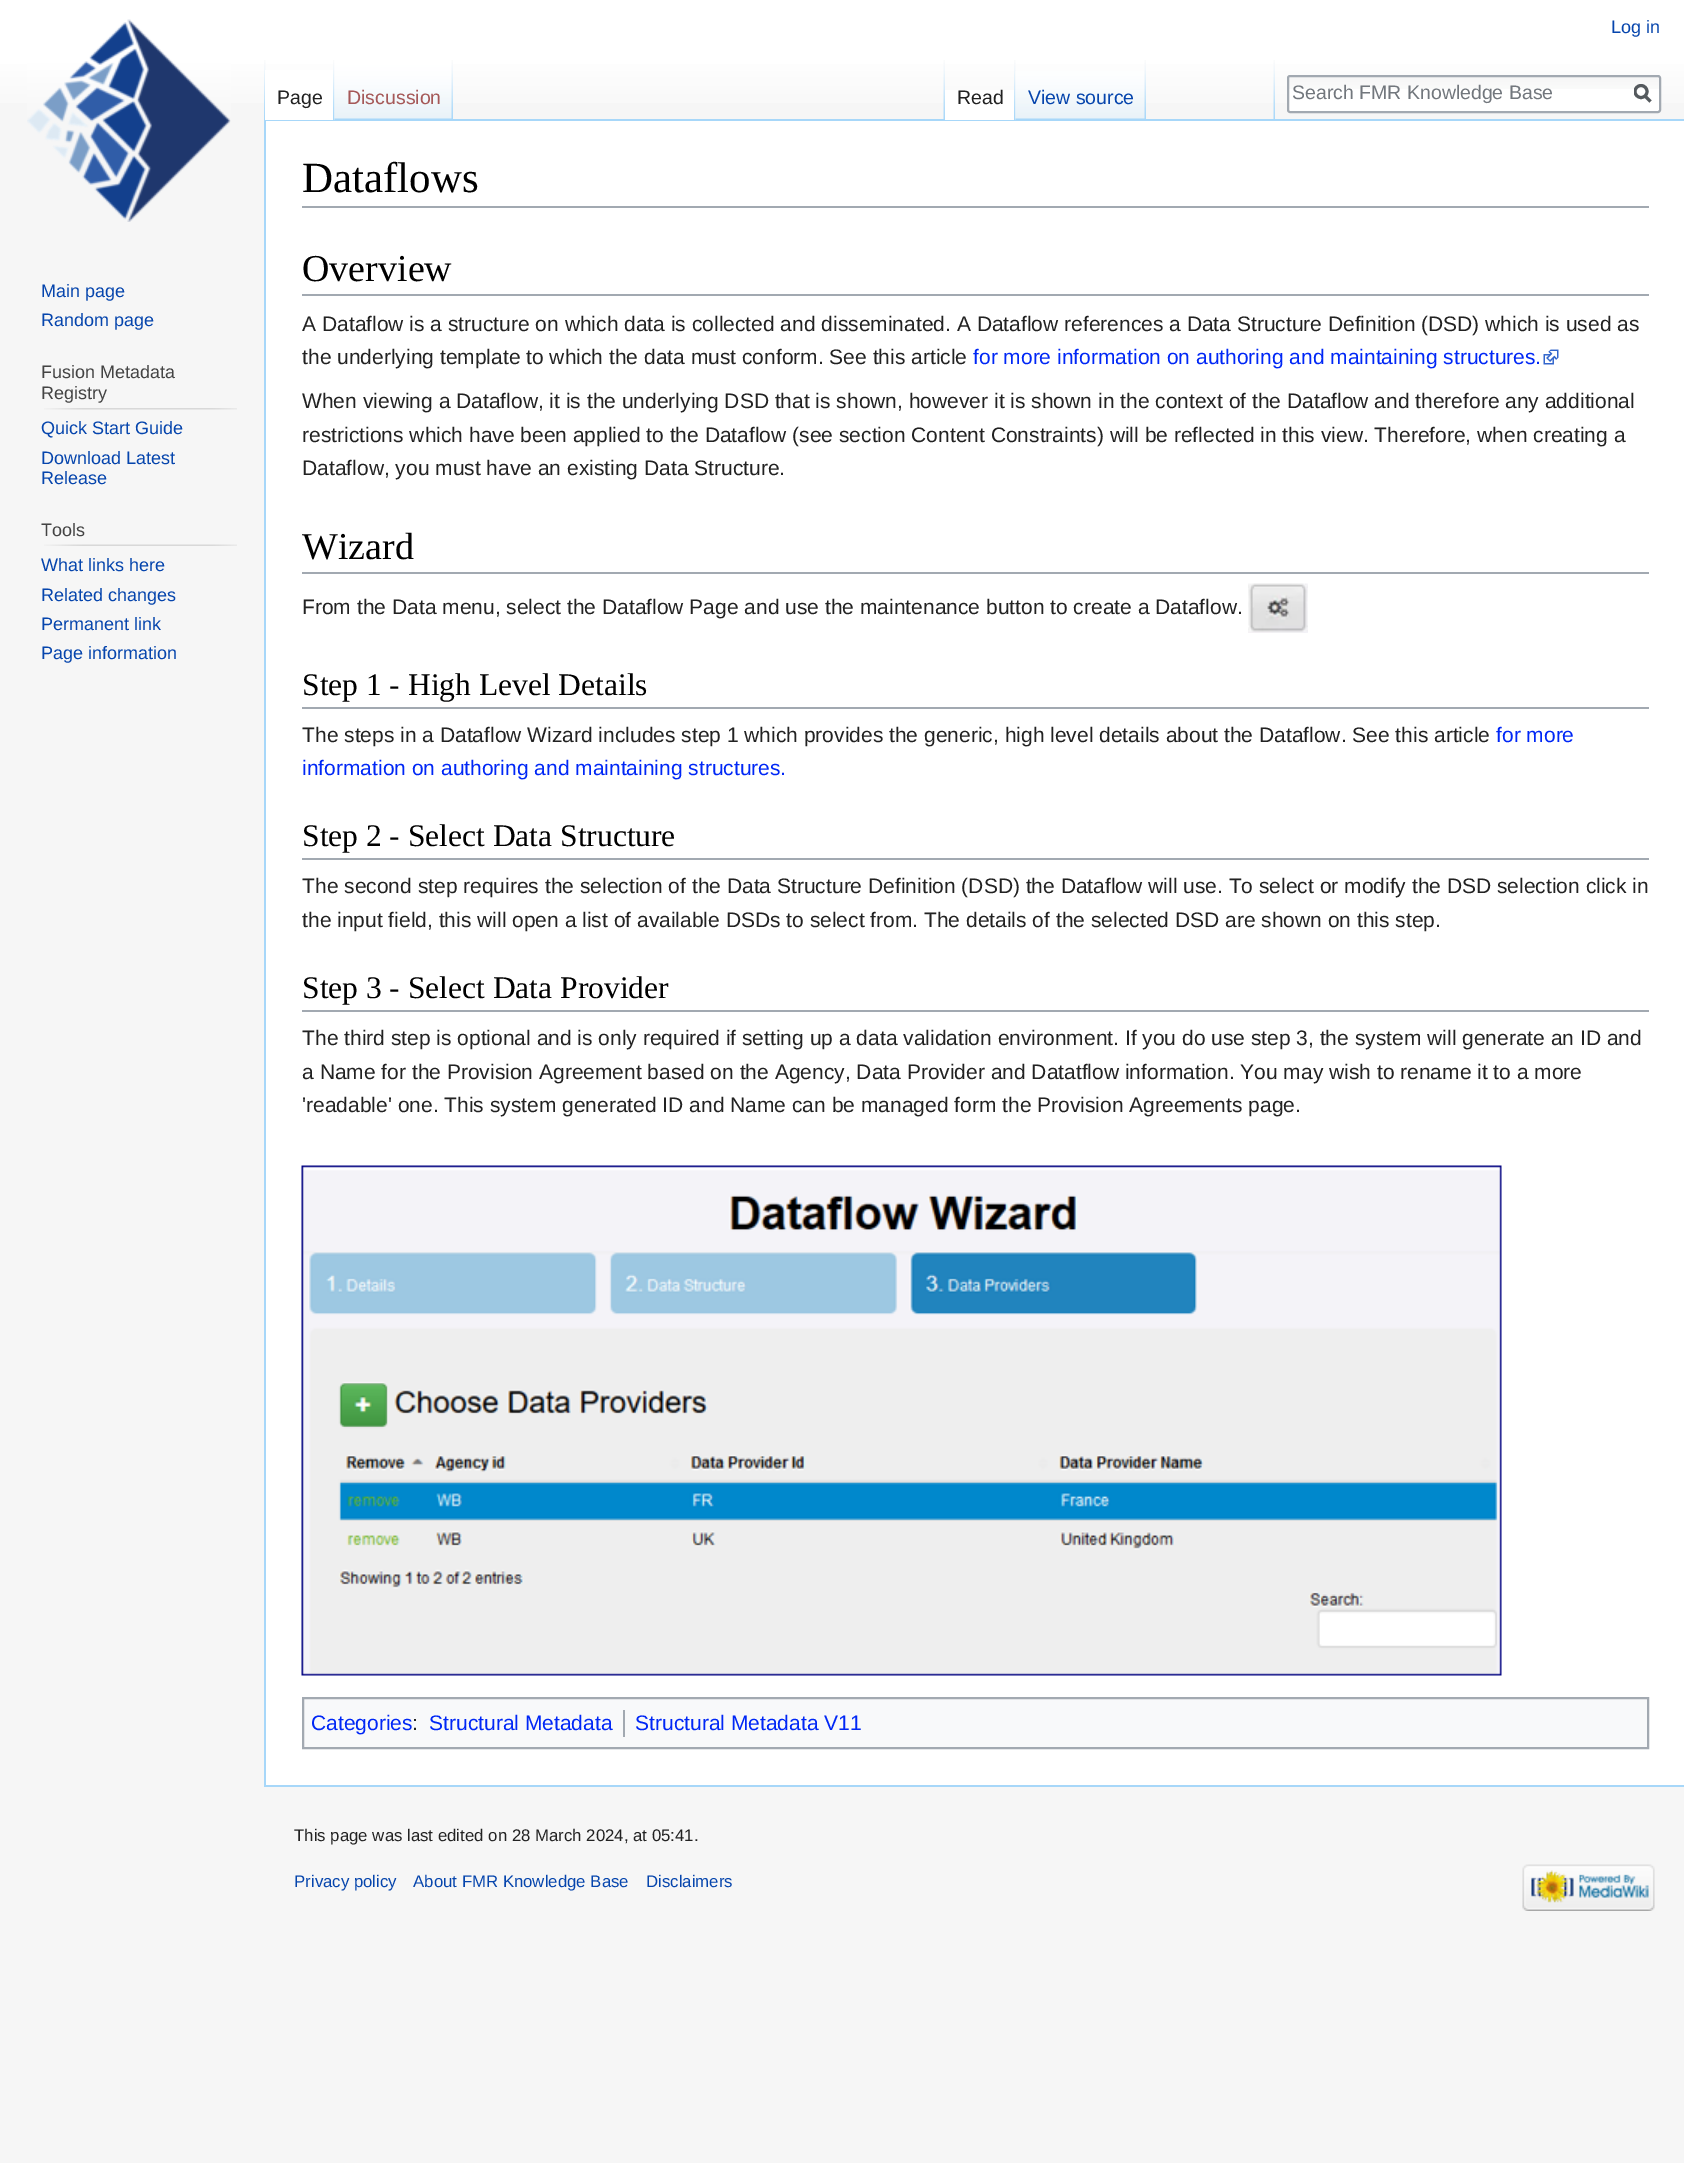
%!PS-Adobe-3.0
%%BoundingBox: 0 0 1684 2163
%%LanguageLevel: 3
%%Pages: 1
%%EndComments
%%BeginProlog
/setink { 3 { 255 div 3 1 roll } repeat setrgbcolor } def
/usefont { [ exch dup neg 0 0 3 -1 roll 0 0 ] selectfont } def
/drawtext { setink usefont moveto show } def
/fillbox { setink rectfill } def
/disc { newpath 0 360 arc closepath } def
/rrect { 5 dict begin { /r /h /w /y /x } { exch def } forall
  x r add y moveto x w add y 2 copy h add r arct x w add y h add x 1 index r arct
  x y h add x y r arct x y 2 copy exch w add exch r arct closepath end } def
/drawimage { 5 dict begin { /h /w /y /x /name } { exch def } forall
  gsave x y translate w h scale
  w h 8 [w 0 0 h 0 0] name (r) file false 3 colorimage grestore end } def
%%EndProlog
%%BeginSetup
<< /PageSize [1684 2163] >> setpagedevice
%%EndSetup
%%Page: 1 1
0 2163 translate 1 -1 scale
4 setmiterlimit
0 0 1684 2163 246 246 246 fillbox
gsave 0 0 moveto 1684 0 lineto 1684 103 lineto 0 103 lineto closepath clip newpath
<< /ShadingType 2 /ColorSpace /DeviceRGB /Coords [842 0 842 120] /Extend [true true] /Function << /FunctionType 3 /Domain [0 1] /Functions [<< /FunctionType 2 /Domain [0 1] /C0 [1 1 1] /C1 [1 1 1] /N 1 >> << /FunctionType 2 /Domain [0 1] /C0 [1 1 1] /C1 [0.965 0.965 0.965] /N 1 >>] /Bounds [0.5] /Encode [0 1 0 1] >> >> shfill grestore
(Log in) 1611 33 /LiberationSans-Regular 18 6 69 173 drawtext
(assets/img1.rgb) 264 60 2 59 drawimage
264 119 1420 2 167 215 249 fillbox
264 1785 1420 2 167 215 249 fillbox
264 119 2 1668 167 215 249 fillbox
265 70 70 50 255 255 255 fillbox
(assets/img2.rgb) 333 60 2 60 drawimage
(Page) 277 104 /LiberationSans-Regular 19.5 34 34 34 drawtext
(assets/img3.rgb) 334 60 119 60 drawimage
(assets/img4.rgb) 451 60 2 59 drawimage
(Discussion) 347 104 /LiberationSans-Regular 19.5 165 88 88 drawtext
(assets/img5.rgb) 943 60 2 59 drawimage
(assets/img5.rgb) 1273 60 2 59 drawimage
945 90 71 30 255 255 255 fillbox
(assets/img6.rgb) 1014 60 2 60 drawimage
(Read) 957 104 /LiberationSans-Regular 19.5 34 34 34 drawtext
(assets/img7.rgb) 1015 71 131 49 drawimage
(assets/img8.rgb) 1144 60 2 59 drawimage
(View source) 1028 104 /LiberationSans-Regular 19.5 6 69 173 drawtext
255 255 255 setink
1287 75 374 38 3 rrect fill
(assets/img9.rgb) 1287 76 372 13 drawimage
162 169 177 setink
2 setlinewidth
1288 76 372 36 2 rrect stroke
(Search FMR Knowledge Base) 1292 99 /LiberationSans-Regular 19.5 114 119 125 drawtext
84 89 93 setink
3 setlinewidth
1650.5 101.5 moveto 1644.5 95.5 lineto stroke
gsave
1634 84 18 20 rectclip
1641 91.5 6 disc stroke
grestore
(assets/img10.rgb) 27 19 204 203 drawimage
(Main page) 41 297 /LiberationSans-Regular 18 6 69 173 drawtext
(Random page) 41 326 /LiberationSans-Regular 18 6 69 173 drawtext
(Fusion Metadata) 41 378 /LiberationSans-Regular 18 68 68 68 drawtext
(Registry) 41 399 /LiberationSans-Regular 18 68 68 68 drawtext
(assets/img11.rgb) 44 408 193 2 drawimage
(Quick Start Guide) 41 434 /LiberationSans-Regular 18 6 69 173 drawtext
(Download Latest) 41 464 /LiberationSans-Regular 18 6 69 173 drawtext
(Release) 41 484 /LiberationSans-Regular 18 6 69 173 drawtext
(Tools) 41 536 /LiberationSans-Regular 18 68 68 68 drawtext
(assets/img12.rgb) 44 544 193 2 drawimage
(What links here) 41 571 /LiberationSans-Regular 18 6 69 173 drawtext
(Related changes) 41 601 /LiberationSans-Regular 18 6 69 173 drawtext
(Permanent link) 41 630 /LiberationSans-Regular 18 6 69 173 drawtext
(Page information) 41 659 /LiberationSans-Regular 18 6 69 173 drawtext
266 121 1418 1664 255 255 255 fillbox
302 206 1347 2 162 169 177 fillbox
(Dataflows) 302 192 /LiberationSerif-Regular 43 0 0 0 drawtext
302 294 1347 2 162 169 177 fillbox
(Overview) 302 281 /LiberationSerif-Regular 38 0 0 0 drawtext
(A Dataflow is a structure on which data is collected and disseminated. A Dataflow references a Data Structure Definition \(DSD\) which is used as) 302 331 /LiberationSans-Regular 21 34 34 34 drawtext
(the underlying template to which the data must conform. See this article) 302 364 /LiberationSans-Regular 21 34 34 34 drawtext
(for more information on authoring and maintaining structures.) 973 364 /LiberationSans-Regular 21 0 39 246 drawtext
(assets/img13.rgb) 1543 349 16 16 drawimage
(When viewing a Dataflow, it is the underlying DSD that is shown, however it is shown in the context of the Dataflow and therefore any additional) 302 408 /LiberationSans-Regular 21 34 34 34 drawtext
(restrictions which have been applied to the Dataflow \(see section Content Constraints\) will be reflected in this view. Therefore, when creating a) 302 442 /LiberationSans-Regular 21 34 34 34 drawtext
(Dataflow, you must have an existing Data Structure.) 302 475 /LiberationSans-Regular 21 34 34 34 drawtext
302 572 1347 2 162 169 177 fillbox
(Wizard) 302 559 /LiberationSerif-Regular 38 0 0 0 drawtext
(From the Data menu, select the Dataflow Page and use the maintenance button to create a Dataflow.) 302 614 /LiberationSans-Regular 21 34 34 34 drawtext
(assets/img14.rgb) 1248 583 60 50 drawimage
302 707 1347 2 162 169 177 fillbox
(Step 1 - High Level Details) 302 695 /LiberationSerif-Regular 31.5 0 0 0 drawtext
(The steps in a Dataflow Wizard includes step 1 which provides the generic, high level details about the Dataflow. See this article) 302 742 /LiberationSans-Regular 21 34 34 34 drawtext
(for more) 1496 742 /LiberationSans-Regular 21 0 39 246 drawtext
(information on authoring and maintaining structures.) 302 775 /LiberationSans-Regular 21 0 39 246 drawtext
302 858 1347 2 162 169 177 fillbox
(Step 2 - Select Data Structure) 302 846 /LiberationSerif-Regular 31.5 0 0 0 drawtext
(The second step requires the selection of the Data Structure Definition \(DSD\) the Dataflow will use. To select or modify the DSD selection click in) 302 893 /LiberationSans-Regular 21 34 34 34 drawtext
(the input field, this will open a list of available DSDs to select from. The details of the selected DSD are shown on this step.) 302 927 /LiberationSans-Regular 21 34 34 34 drawtext
302 1010 1347 2 162 169 177 fillbox
(Step 3 - Select Data Provider) 302 998 /LiberationSerif-Regular 31.5 0 0 0 drawtext
(The third step is optional and is only required if setting up a data validation environment. If you do use step 3, the system will generate an ID and) 302 1045 /LiberationSans-Regular 21 34 34 34 drawtext
(a Name for the Provision Agreement based on the Agency, Data Provider and Datatflow information. You may wish to rename it to a more) 302 1079 /LiberationSans-Regular 21 34 34 34 drawtext
('readable' one. This system generated ID and Name can be managed form the Provision Agreements page.) 302 1112 /LiberationSans-Regular 21 34 34 34 drawtext
(assets/img15.rgb) 301 1165 1201 511 drawimage
248 249 250 setink
303 1698 moveto 1648 1698 lineto 1648 1748 lineto 303 1748 lineto closepath gsave fill grestore
162 169 177 setink
2 setlinewidth
stroke
(Categories) 311 1730 /LiberationSans-Regular 21 0 39 246 drawtext
(:) 412 1730 /LiberationSans-Regular 21 34 34 34 drawtext
(Structural Metadata) 429 1730 /LiberationSans-Regular 21 0 39 246 drawtext
623 1710 2 27 162 169 177 fillbox
(Structural Metadata V11) 635 1730 /LiberationSans-Regular 21 0 39 246 drawtext
(This page was last edited on 28 March 2024, at 05:41.) 294 1841 /LiberationSans-Regular 16.8 34 34 34 drawtext
(Privacy policy) 294 1887 /LiberationSans-Regular 16.8 6 69 173 drawtext
(About FMR Knowledge Base) 413 1887 /LiberationSans-Regular 16.8 6 69 173 drawtext
(Disclaimers) 646 1887 /LiberationSans-Regular 16.8 6 69 173 drawtext
(assets/img16.rgb) 1522 1864 133 47 drawimage
showpage
%%EOF
